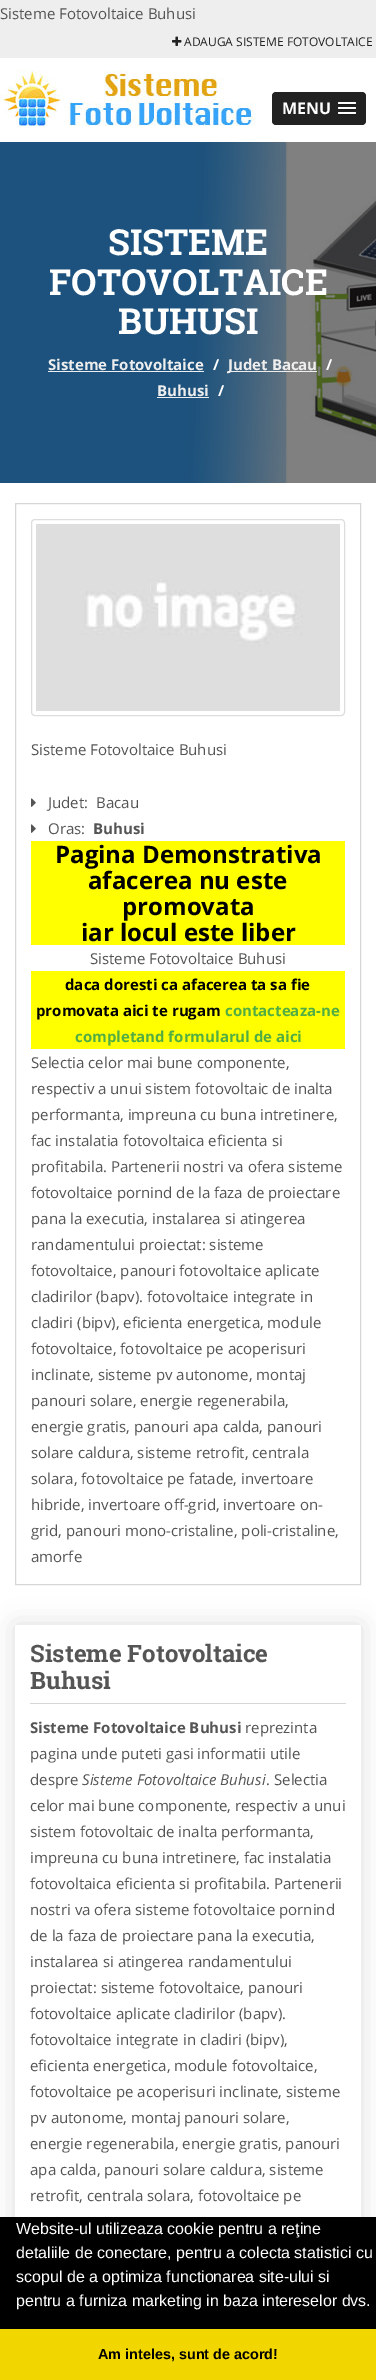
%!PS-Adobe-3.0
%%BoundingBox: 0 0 376 2380
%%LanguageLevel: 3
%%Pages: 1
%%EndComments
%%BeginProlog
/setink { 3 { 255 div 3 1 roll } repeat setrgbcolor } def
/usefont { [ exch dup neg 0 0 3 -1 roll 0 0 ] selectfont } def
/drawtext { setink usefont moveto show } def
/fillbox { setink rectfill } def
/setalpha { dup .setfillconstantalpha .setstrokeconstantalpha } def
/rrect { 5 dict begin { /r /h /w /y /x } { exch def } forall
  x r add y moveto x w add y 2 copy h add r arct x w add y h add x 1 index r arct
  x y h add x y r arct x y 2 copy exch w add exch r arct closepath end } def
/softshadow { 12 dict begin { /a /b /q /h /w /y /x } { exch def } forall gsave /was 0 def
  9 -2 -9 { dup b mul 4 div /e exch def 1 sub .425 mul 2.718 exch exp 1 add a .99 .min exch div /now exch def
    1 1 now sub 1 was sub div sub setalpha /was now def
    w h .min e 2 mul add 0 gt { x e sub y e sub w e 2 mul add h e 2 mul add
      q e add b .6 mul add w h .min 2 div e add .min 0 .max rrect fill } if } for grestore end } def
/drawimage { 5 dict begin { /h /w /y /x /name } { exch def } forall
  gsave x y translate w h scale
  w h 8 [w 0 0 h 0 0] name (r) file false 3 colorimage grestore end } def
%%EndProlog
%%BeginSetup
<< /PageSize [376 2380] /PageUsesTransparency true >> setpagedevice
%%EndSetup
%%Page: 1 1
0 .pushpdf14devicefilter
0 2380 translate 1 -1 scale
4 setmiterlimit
0 0 376 2380 255 255 255 fillbox
0 0 376 58 238 238 238 fillbox
(Sisteme Fotovoltaice Buhusi) 0 19 /OpenSans-Regular 15 85 85 85 drawtext
(assets/img1.rgb) 172 36 10 10 drawimage
(ADAUGA SISTEME FOTOVOLTAICE) 184 46 /OpenSans-Regular 12 34 34 34 drawtext
(assets/img2.rgb) 0 70 256 56 drawimage
272 92 94 33 4 rrect fill
(MENU) 282 114 /OpenSans-Bold 16 255 255 255 drawtext
26 26 26 setink
338 103.5 moveto 337 105.5 341.5 105 341.5 105 curveto 352.5 105 lineto 352.5 105 357 105.5 356 103.5 curveto 355 104.5 348.5 104 347 104 curveto 345.5 104 339 104.5 338 103.5 curveto closepath fill
255 255 255 setink
338 102 18 2 1 rrect fill
26 26 26 setink
338 108.5 moveto 337 110.5 341.5 110 341.5 110 curveto 352.5 110 lineto 352.5 110 357 110.5 356 108.5 curveto 355 109.5 348.5 109 347 109 curveto 345.5 109 339 109.5 338 108.5 curveto closepath fill
255 255 255 setink
338 107 18 2 1 rrect fill
26 26 26 setink
338 113.5 moveto 337 115.5 341.5 115 341.5 115 curveto 352.5 115 lineto 352.5 115 357 115.5 356 113.5 curveto 355 114.5 348.5 114 347 114 curveto 345.5 114 339 114.5 338 113.5 curveto closepath fill
255 255 255 setink
338 112 18 2 1 rrect fill
(assets/img3.rgb) 0 142 376 341 drawimage
(SISTEME) 108 255 /RobotoSlab-Bold 36 255 255 255 drawtext
(FOTOVOLTAICE) 49 295 /RobotoSlab-Bold 36 255 255 255 drawtext
(BUHUSI) 118 334 /RobotoSlab-Bold 36 255 255 255 drawtext
(Sisteme Fotovoltaice) 48 370 /OpenSans-Bold 15 238 238 238 drawtext
48 371 156 1 238 238 238 fillbox
(/) 213 370 /OpenSans-Bold 15 255 255 255 drawtext
228 371 89 1 238 238 238 fillbox
(Judet Bacau) 228 370 /OpenSans-Bold 15 238 238 238 drawtext
(/) 326 370 /OpenSans-Bold 15 255 255 255 drawtext
(Buhusi) 157 396 /OpenSans-Bold 15 238 238 238 drawtext
157 397 52 1 238 238 238 fillbox
(/) 218 396 /OpenSans-Bold 15 255 255 255 drawtext
214 214 214 setink
15.5 503.5 345 1081 rectstroke
221 221 221 setink
31.5 519.5 313 196 3.5 rrect stroke
(assets/img4.rgb) 36 524 304 187 drawimage
(Sisteme Fotovoltaice Buhusi) 31 755 /OpenSans-Regular 15 85 85 85 drawtext
(assets/img5.rgb) 31 798 5 9 drawimage
(Judet:) 48 808 /OpenSans-Regular 15 85 85 85 drawtext
(Bacau) 96 808 /OpenSans-Regular 15 85 85 85 drawtext
(assets/img5.rgb) 31 824 5 9 drawimage
(Oras:) 48 834 /OpenSans-Regular 15 85 85 85 drawtext
(Buhusi) 93 834 /OpenSans-Bold 15 85 85 85 drawtext
31 841 314 104 255 255 0 fillbox
(Pagina Demonstrativa) 55 863 /OpenSans-Bold 24 0 0 0 drawtext
(afacerea nu este) 88 889 /OpenSans-Bold 24 0 0 0 drawtext
(promovata) 122 915 /OpenSans-Bold 24 0 0 0 drawtext
(iar locul este liber) 81 941 /OpenSans-Bold 24 0 0 0 drawtext
(Sisteme Fotovoltaice Buhusi) 90 964 /OpenSans-Regular 15 85 85 85 drawtext
31 971 314 78 255 255 0 fillbox
(daca doresti ca afacerea ta sa fie) 65 990 /OpenSans-Bold 15 0 0 0 drawtext
(promovata aici te rugam) 36 1016 /OpenSans-Bold 15 0 0 0 drawtext
(contacteaza-ne) 225 1016 /OpenSans-Bold 15 82 173 66 drawtext
(completand formularul de aici) 75 1042 /OpenSans-Bold 15 82 173 66 drawtext
(Selectia celor mai bune componente,) 31 1068 /OpenSans-Regular 15 85 85 85 drawtext
(respectiv a unui sistem fotovoltaic de inalta) 31 1094 /OpenSans-Regular 15 85 85 85 drawtext
(performanta, impreuna cu buna intretinere,) 31 1120 /OpenSans-Regular 15 85 85 85 drawtext
(fac instalatia fotovoltaica eficienta si) 31 1146 /OpenSans-Regular 15 85 85 85 drawtext
(profitabila. Partenerii nostri va ofera sisteme) 31 1172 /OpenSans-Regular 15 85 85 85 drawtext
(fotovoltaice pornind de la faza de proiectare) 31 1198 /OpenSans-Regular 15 85 85 85 drawtext
(pana la executia, instalarea si atingerea) 31 1224 /OpenSans-Regular 15 85 85 85 drawtext
(randamentului proiectat: sisteme) 31 1250 /OpenSans-Regular 15 85 85 85 drawtext
(fotovoltaice, panouri fotovoltaice aplicate) 31 1276 /OpenSans-Regular 15 85 85 85 drawtext
(cladirilor \(bapv\). fotovoltaice integrate in) 31 1302 /OpenSans-Regular 15 85 85 85 drawtext
(cladiri \(bipv\), eficienta energetica, module) 31 1328 /OpenSans-Regular 15 85 85 85 drawtext
(fotovoltaice, fotovoltaice pe acoperisuri) 31 1354 /OpenSans-Regular 15 85 85 85 drawtext
(inclinate, sisteme pv autonome, montaj) 31 1380 /OpenSans-Regular 15 85 85 85 drawtext
(panouri solare, energie regenerabila,) 31 1406 /OpenSans-Regular 15 85 85 85 drawtext
(energie gratis, panouri apa calda, panouri) 31 1432 /OpenSans-Regular 15 85 85 85 drawtext
(solare caldura, sisteme retrofit, centrala) 31 1458 /OpenSans-Regular 15 85 85 85 drawtext
(solara, fotovoltaice pe fatade, invertoare) 31 1484 /OpenSans-Regular 15 85 85 85 drawtext
(hibride, invertoare off-grid, invertoare on-) 31 1510 /OpenSans-Regular 15 85 85 85 drawtext
(grid, panouri mono-cristaline, poli-cristaline,) 31 1536 /OpenSans-Regular 15 85 85 85 drawtext
(amorfe) 31 1562 /OpenSans-Regular 15 85 85 85 drawtext
gsave
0 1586 moveto 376 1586 lineto 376 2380 lineto 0 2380 lineto closepath 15 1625 moveto 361 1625 lineto 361 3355 lineto 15 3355 lineto closepath eoclip newpath
221 221 221 setink
15 1625 346 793 0 12.5 1 softshadow
grestore
30 1703 316 1 214 214 214 fillbox
(Sisteme Fotovoltaice) 30 1662 /RobotoSlab-Bold 24 85 85 85 drawtext
(Buhusi) 30 1689 /RobotoSlab-Bold 24 85 85 85 drawtext
(Sisteme Fotovoltaice Buhusi) 30 1733 /OpenSans-Bold 15 85 85 85 drawtext
(reprezinta) 245 1733 /OpenSans-Regular 15 85 85 85 drawtext
(pagina unde puteti gasi informatii utile) 30 1759 /OpenSans-Regular 15 85 85 85 drawtext
(despre) 30 1785 /OpenSans-Regular 15 85 85 85 drawtext
(Sisteme Fotovoltaice Buhusi) 82 1785 /OpenSans-Italic 15 85 85 85 drawtext
(. Selectia) 266 1785 /OpenSans-Regular 15 85 85 85 drawtext
(celor mai bune componente, respectiv a unui) 30 1811 /OpenSans-Regular 15 85 85 85 drawtext
(sistem fotovoltaic de inalta performanta,) 30 1837 /OpenSans-Regular 15 85 85 85 drawtext
(impreuna cu buna intretinere, fac instalatia) 30 1863 /OpenSans-Regular 15 85 85 85 drawtext
(fotovoltaica eficienta si profitabila. Partenerii) 30 1889 /OpenSans-Regular 15 85 85 85 drawtext
(nostri va ofera sisteme fotovoltaice pornind) 30 1915 /OpenSans-Regular 15 85 85 85 drawtext
(de la faza de proiectare pana la executia,) 30 1941 /OpenSans-Regular 15 85 85 85 drawtext
(instalarea si atingerea randamentului) 30 1967 /OpenSans-Regular 15 85 85 85 drawtext
(proiectat: sisteme fotovoltaice, panouri) 30 1993 /OpenSans-Regular 15 85 85 85 drawtext
(fotovoltaice aplicate cladirilor \(bapv\).) 30 2019 /OpenSans-Regular 15 85 85 85 drawtext
(fotovoltaice integrate in cladiri \(bipv\),) 30 2045 /OpenSans-Regular 15 85 85 85 drawtext
(eficienta energetica, module fotovoltaice,) 30 2071 /OpenSans-Regular 15 85 85 85 drawtext
(fotovoltaice pe acoperisuri inclinate, sisteme) 30 2097 /OpenSans-Regular 15 85 85 85 drawtext
(pv autonome, montaj panouri solare,) 30 2123 /OpenSans-Regular 15 85 85 85 drawtext
(energie regenerabila, energie gratis, panouri) 30 2149 /OpenSans-Regular 15 85 85 85 drawtext
(apa calda, panouri solare caldura, sisteme) 30 2175 /OpenSans-Regular 15 85 85 85 drawtext
(retrofit, centrala solara, fotovoltaice pe) 30 2201 /OpenSans-Regular 15 85 85 85 drawtext
0 2217 376 112 0 0 0 fillbox
(Website-ul utilizeaza cookie pentru a reţine) 16 2234 /LiberationSans-Regular 16 255 255 255 drawtext
(detaliile de conectare, pentru a colecta statistici cu) 16 2258 /LiberationSans-Regular 16 255 255 255 drawtext
(scopul de a optimiza functionarea site-ului si) 16 2282 /LiberationSans-Regular 16 255 255 255 drawtext
(pentru a furniza marketing in baza intereselor dvs.) 16 2306 /LiberationSans-Regular 16 255 255 255 drawtext
0 2329 376 51 241 214 0 fillbox
(Am inteles, sunt de acord!) 98 2359 /LiberationSans-Bold 14.4 0 0 0 drawtext
.poppdf14devicefilter showpage
%%EOF
